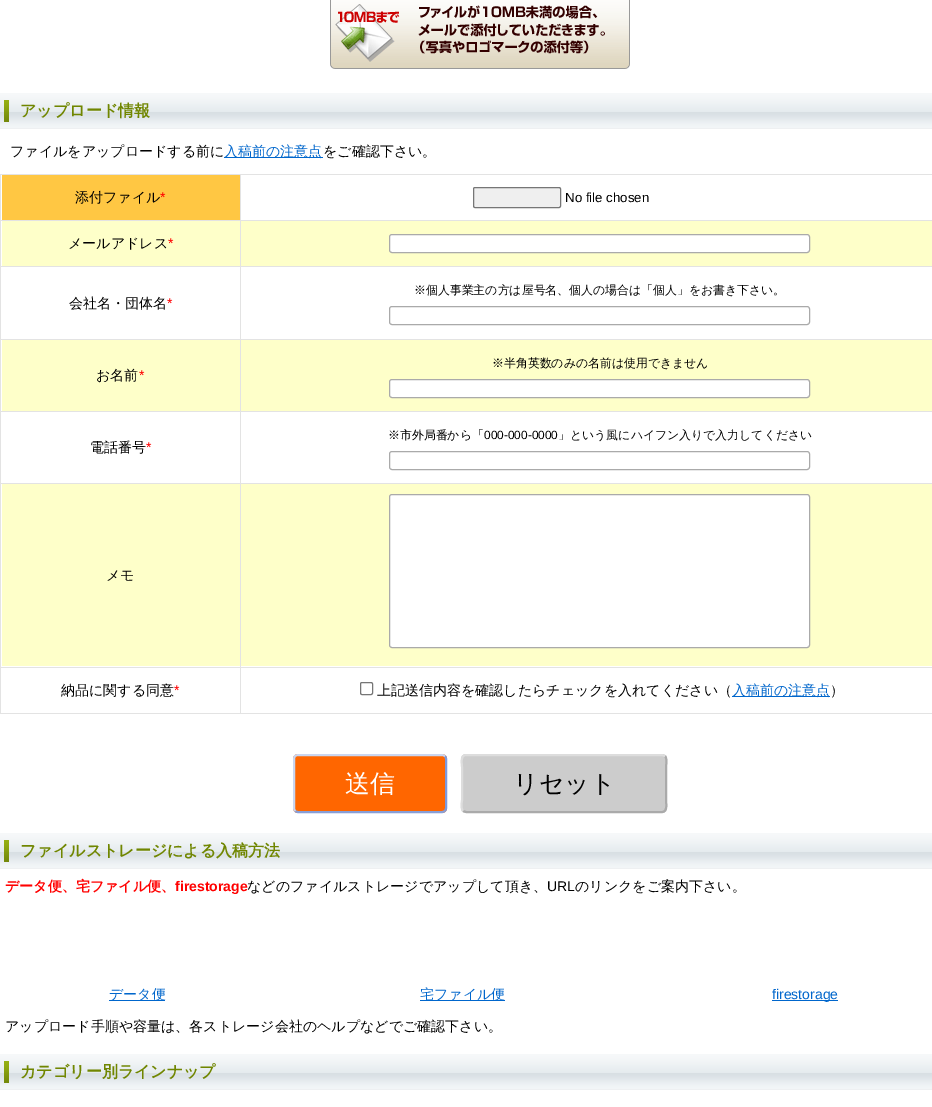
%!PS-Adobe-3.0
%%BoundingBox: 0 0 932 1107
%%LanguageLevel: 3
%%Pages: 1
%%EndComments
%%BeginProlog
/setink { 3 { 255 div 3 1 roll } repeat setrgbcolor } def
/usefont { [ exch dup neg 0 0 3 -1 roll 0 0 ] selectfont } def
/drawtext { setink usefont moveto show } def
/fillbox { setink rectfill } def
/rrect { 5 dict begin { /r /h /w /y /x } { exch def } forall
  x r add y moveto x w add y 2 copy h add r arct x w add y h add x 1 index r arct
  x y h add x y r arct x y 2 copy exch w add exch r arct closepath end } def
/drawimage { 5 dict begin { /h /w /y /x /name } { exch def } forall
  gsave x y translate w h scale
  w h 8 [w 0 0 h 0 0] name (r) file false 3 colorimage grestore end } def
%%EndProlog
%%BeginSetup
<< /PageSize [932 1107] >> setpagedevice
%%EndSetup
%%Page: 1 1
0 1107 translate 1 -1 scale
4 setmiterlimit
0 0 932 1107 255 255 255 fillbox
(assets/img1.rgb) 330 0 300 69 drawimage
(assets/img2.rgb) 0 93 932 36 drawimage
(アップロード情報) 20 116 /WenQuanYiZenHei-Bold 16 112 134 0 drawtext
(ファイルをアップロードする前に) 10 156 /WenQuanYiZenHei-Medium 14 0 0 0 drawtext
224 157 99 1 0 102 204 fillbox
(入稿前の注意点) 224 156 /WenQuanYiZenHei-Medium 14 0 102 204 drawtext
(をご確認下さい。) 323 156 /WenQuanYiZenHei-Medium 14 0 0 0 drawtext
0 174 932 1 227 227 227 fillbox
0 713 932 1 227 227 227 fillbox
0 174 1 540 227 227 227 fillbox
2 175 238 45 255 199 67 fillbox
240 667 1 47 227 227 227 fillbox
240 667 692 1 227 227 227 fillbox
240 483 1 185 227 227 227 fillbox
240 483 692 1 227 227 227 fillbox
240 411 1 73 227 227 227 fillbox
240 411 692 1 227 227 227 fillbox
240 339 1 73 227 227 227 fillbox
240 339 692 1 227 227 227 fillbox
240 266 1 74 227 227 227 fillbox
240 266 692 1 227 227 227 fillbox
240 220 1 47 227 227 227 fillbox
240 220 692 1 227 227 227 fillbox
240 174 1 47 227 227 227 fillbox
0 220 241 1 227 227 227 fillbox
(添付ファイル) 75 202 /WenQuanYiZenHei-Medium 14 0 0 0 drawtext
(*) 160 202 /LiberationSans-Regular 14 255 0 0 drawtext
239 239 239 setink
473.5 187.5 87 20 1.5 rrect gsave fill grestore
118 118 118 setink
stroke
(No file chosen) 565 202 /LiberationSans-Regular 13.25 0 0 0 drawtext
2 221 238 45 254 255 201 fillbox
0 266 241 1 227 227 227 fillbox
(メールアドレス) 68 248 /WenQuanYiZenHei-Medium 14 0 0 0 drawtext
(*) 168 248 /LiberationSans-Regular 14 255 0 0 drawtext
241 221 691 45 254 255 201 fillbox
255 255 255 setink
389.5 234.5 420 18 2.5 rrect gsave fill grestore
170 170 170 setink
stroke
(※個人事業主の方は屋号名、個人の場合は「個人」をお書き下さい。) 414 294 /WenQuanYiZenHei-Medium 11.9 0 0 0 drawtext
170 170 170 setink
389.5 306.5 420 18 2.5 rrect stroke
0 339 241 1 227 227 227 fillbox
(会社名・団体名) 69 308 /WenQuanYiZenHei-Medium 14 0 0 0 drawtext
(*) 167 308 /LiberationSans-Regular 14 255 0 0 drawtext
241 340 691 71 254 255 201 fillbox
(※半角英数のみの名前は使用できません) 492 367 /WenQuanYiZenHei-Medium 11.9 0 0 0 drawtext
255 255 255 setink
389.5 379.5 420 18 2.5 rrect gsave fill grestore
170 170 170 setink
stroke
2 340 238 71 254 255 201 fillbox
0 411 241 1 227 227 227 fillbox
(お名前) 96 380 /WenQuanYiZenHei-Medium 14 0 0 0 drawtext
(*) 139 380 /LiberationSans-Regular 14 255 0 0 drawtext
(※市外局番から「) 388 439 /WenQuanYiZenHei-Medium 11.9 0 0 0 drawtext
(000-000-0000) 484 439 /LiberationSans-Regular 11.9 0 0 0 drawtext
(」という風にハイフン入りで入力してください) 558 439 /WenQuanYiZenHei-Medium 11.9 0 0 0 drawtext
170 170 170 setink
389.5 451.5 420 18 2.5 rrect stroke
0 483 241 1 227 227 227 fillbox
(電話番号) 90 452 /WenQuanYiZenHei-Medium 14 0 0 0 drawtext
(*) 146 452 /LiberationSans-Regular 14 255 0 0 drawtext
2 484 238 182 254 255 201 fillbox
0 667 241 1 227 227 227 fillbox
(メモ) 106 580 /WenQuanYiZenHei-Medium 14 0 0 0 drawtext
241 484 691 182 254 255 201 fillbox
255 255 255 setink
389.5 494.5 420 153 2.5 rrect gsave fill grestore
170 170 170 setink
stroke
(納品に関する同意) 61 695 /WenQuanYiZenHei-Medium 14 0 0 0 drawtext
(*) 174 695 /LiberationSans-Regular 14 255 0 0 drawtext
118 118 118 setink
360.5 682.5 12 12 1.5 rrect stroke
(上記送信内容を確認したらチェックを入れてください（) 377 695 /WenQuanYiZenHei-Medium 14 0 0 0 drawtext
732 696 98 1 0 102 204 fillbox
(入稿前の注意点) 732 695 /WenQuanYiZenHei-Medium 14 0 102 204 drawtext
(）) 830 695 /WenQuanYiZenHei-Medium 14 0 0 0 drawtext
255 102 0 setink
293 754 154 59 5 rrect fill
124 153 220 setink
2 setlinewidth
445 756 moveto 445.5 757 446 758 446 759 curveto 446 808 lineto 446 809 445.5 810 445 811 curveto stroke
136 159 215 setink
445 811 moveto 444 811.5 443 812 442 812 curveto 298 812 lineto 297 812 296 811.5 295 811 curveto stroke
202 214 240 setink
295 811 moveto 294.5 810 294 809 294 808 curveto 294 759 lineto 294 758 294.5 757 295 756 curveto 296 755.5 297 755 298 755 curveto 442 755 lineto 443 755 444 755.5 445 756 curveto stroke
(送信) 345 792 /WenQuanYiZenHei-Medium 25 255 255 255 drawtext
204 204 204 setink
461 754 206 59 5 rrect fill
170 170 170 setink
665 756 moveto 667.5 758.5 666 765.5 666 767 curveto 666 800 lineto 666 802.5 668 812 662 812 curveto 466 812 lineto 463 811 lineto stroke
221 221 221 setink
463 811 moveto 460.5 808.5 462 801.5 462 800 curveto 462 767 lineto 462 764.5 460 755 466 755 curveto 662 755 lineto 665 756 lineto stroke
(リセット) 513 792 /WenQuanYiZenHei-Medium 25 0 0 0 drawtext
(assets/img2.rgb) 0 833 932 36 drawimage
(ファイルストレージによる入稿方法) 20 856 /WenQuanYiZenHei-Bold 16 112 134 0 drawtext
(データ便、宅ファイル便、) 5 891 /WenQuanYiZenHei-Bold 14 255 0 0 drawtext
(firestorage) 175 891 /LiberationSans-Bold 14 255 0 0 drawtext
(などのファイルストレージでアップして頂き、) 247 891 /WenQuanYiZenHei-Medium 14 0 0 0 drawtext
(URL) 547 891 /LiberationSans-Regular 14 0 0 0 drawtext
(のリンクをご案内下さい。) 575 891 /WenQuanYiZenHei-Medium 14 0 0 0 drawtext
109 1000 56 1 0 102 204 fillbox
(データ便) 109 999 /WenQuanYiZenHei-Medium 14 0 102 204 drawtext
420 1000 85 1 0 102 204 fillbox
(宅ファイル便) 420 999 /WenQuanYiZenHei-Medium 14 0 102 204 drawtext
772 1000 66 1 0 102 204 fillbox
(firestorage) 772 999 /LiberationSans-Regular 14 0 102 204 drawtext
(アップロード手順や容量は、各ストレージ会社のヘルプなどでご確認下さい。) 5 1031 /WenQuanYiZenHei-Medium 14 0 0 0 drawtext
(assets/img2.rgb) 0 1054 932 36 drawimage
(カテゴリー別ラインナップ) 20 1077 /WenQuanYiZenHei-Bold 16 112 134 0 drawtext
showpage
%%EOF
